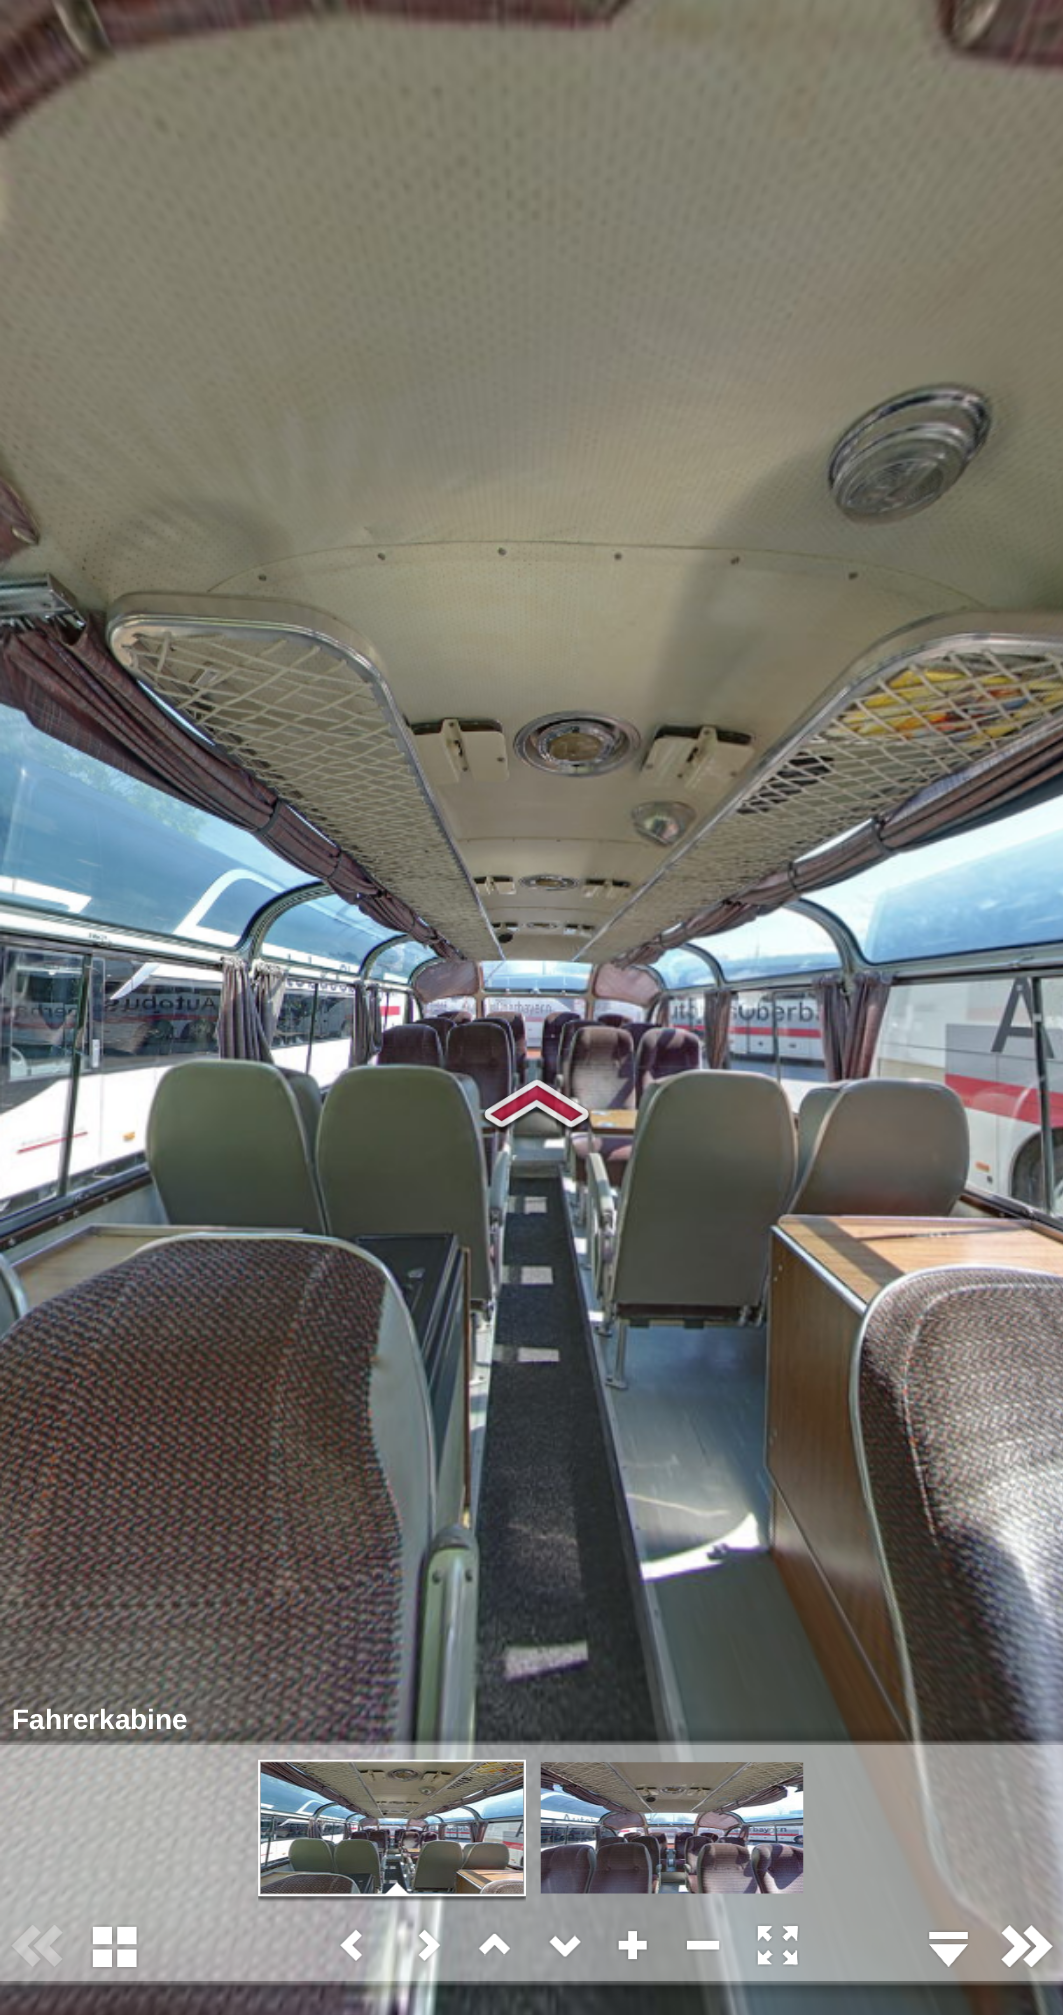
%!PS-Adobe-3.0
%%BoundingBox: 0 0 1063 2015
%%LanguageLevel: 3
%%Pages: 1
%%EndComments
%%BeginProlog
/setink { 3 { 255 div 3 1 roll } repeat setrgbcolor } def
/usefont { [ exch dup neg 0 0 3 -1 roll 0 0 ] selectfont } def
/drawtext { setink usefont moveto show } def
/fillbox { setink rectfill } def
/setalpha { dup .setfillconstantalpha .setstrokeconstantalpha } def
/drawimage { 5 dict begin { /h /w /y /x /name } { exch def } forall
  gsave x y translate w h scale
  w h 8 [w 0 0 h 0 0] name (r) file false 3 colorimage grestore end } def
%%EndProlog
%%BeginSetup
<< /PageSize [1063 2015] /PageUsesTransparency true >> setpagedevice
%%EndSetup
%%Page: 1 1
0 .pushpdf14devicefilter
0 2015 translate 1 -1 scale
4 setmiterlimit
0 0 1063 2015 255 255 255 fillbox
(assets/img1.rgb) 0 0 1063 2015 drawimage
(assets/img2.rgb) 481 1078 111 55 drawimage
(assets/img3.rgb) 0 1728 1063 17 drawimage
(Fahrerkabine) 12 1729 /LiberationSans-Bold 28 255 255 255 drawtext
0.5 setalpha
0 1745 1063 166 255 255 255 fillbox
1 setalpha
(assets/img4.rgb) 260 1762 264 132 drawimage
(assets/img5.rgb) 258 1759 268 143 drawimage
(assets/img6.rgb) 540 1762 264 132 drawimage
0.5 setalpha
0 1911 1063 70 255 255 255 fillbox
1 setalpha
(assets/img7.rgb) 11 1925 52 42 drawimage
(assets/img8.rgb) 90 1924 49 46 drawimage
(assets/img9.rgb) 339 1928 24 34 drawimage
(assets/img10.rgb) 417 1928 24 34 drawimage
(assets/img11.rgb) 478 1932 33 24 drawimage
(assets/img12.rgb) 548 1934 34 25 drawimage
(assets/img13.rgb) 616 1928 33 34 drawimage
(assets/img14.rgb) 684 1938 38 14 drawimage
(assets/img15.rgb) 755 1923 45 44 drawimage
(assets/img16.rgb) 927 1929 43 39 drawimage
(assets/img17.rgb) 1000 1924 54 45 drawimage
(assets/img18.rgb) 0 1981 1063 17 drawimage
.poppdf14devicefilter showpage
%%EOF
